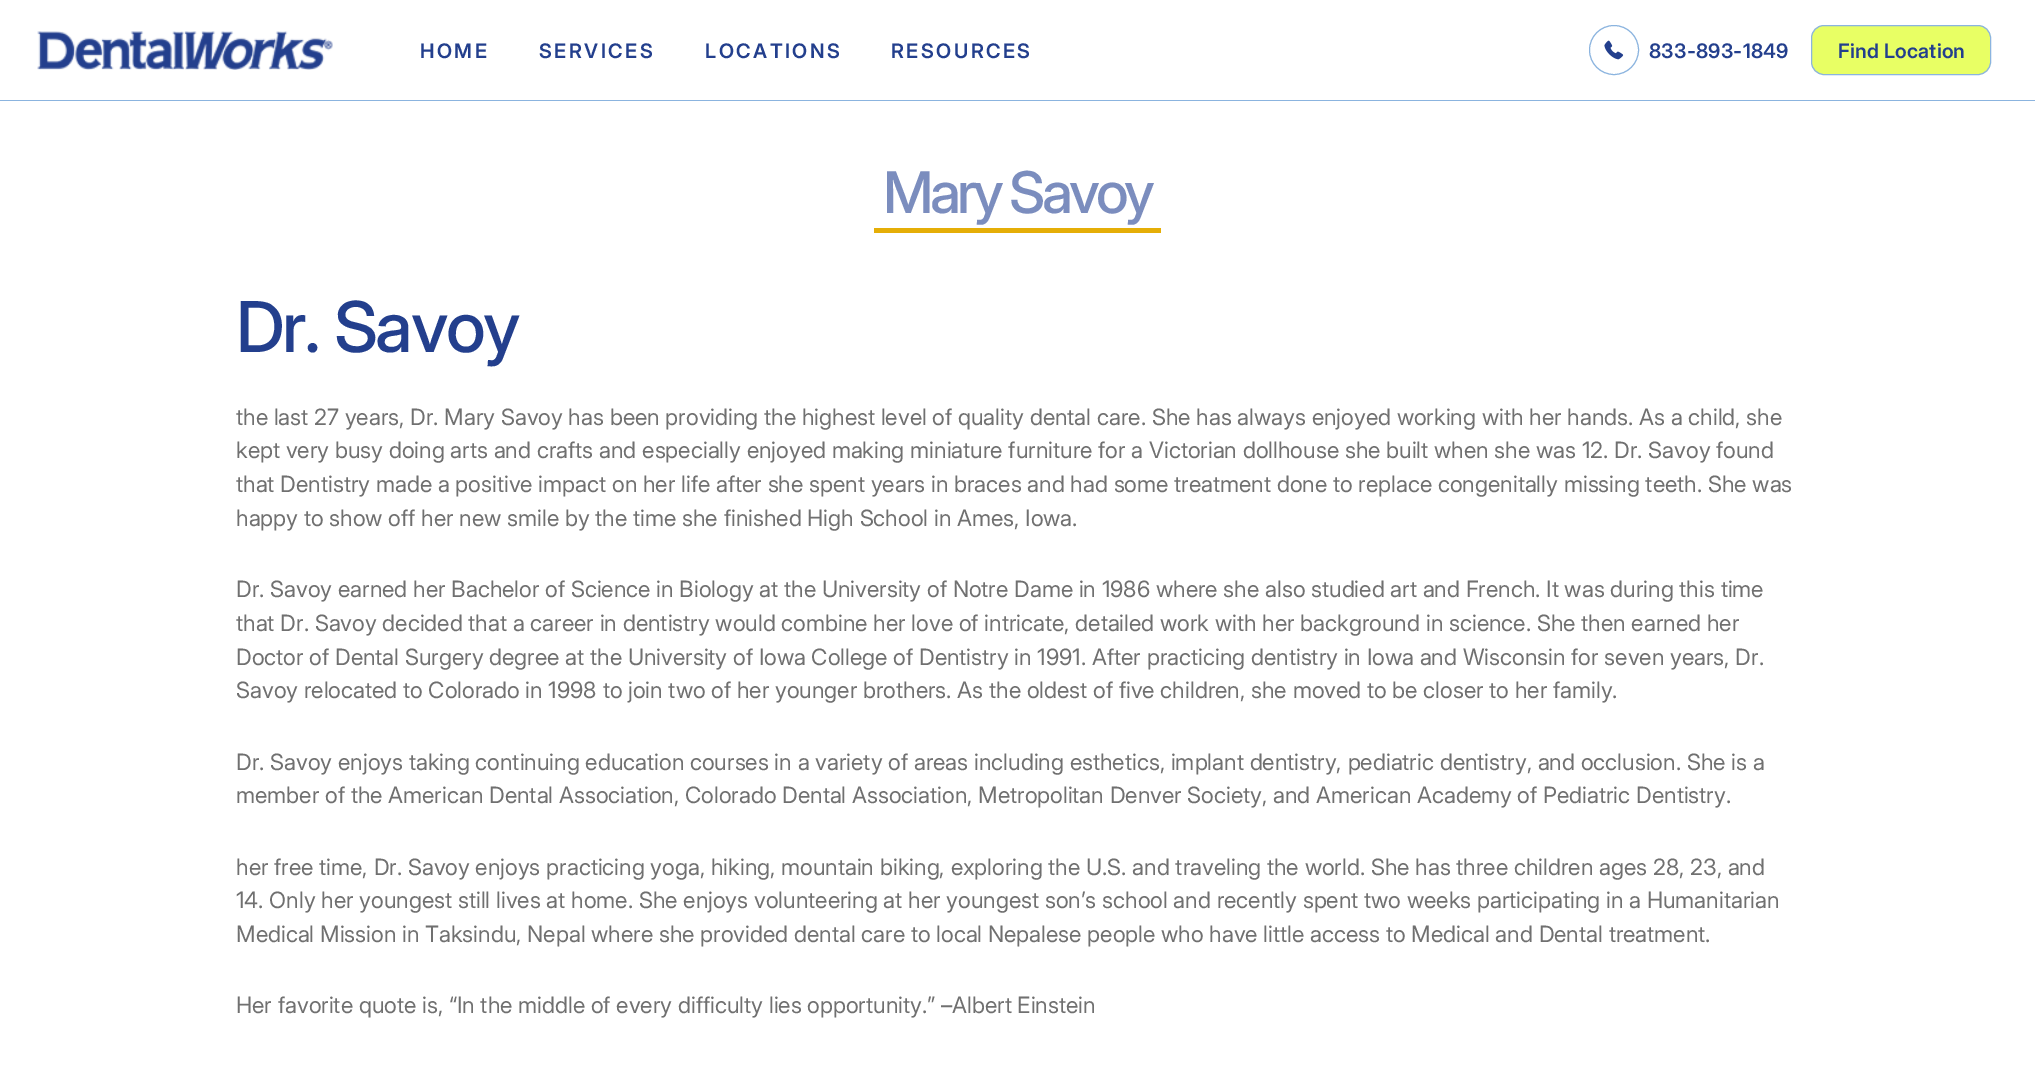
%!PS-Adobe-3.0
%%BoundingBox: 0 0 2035 1076
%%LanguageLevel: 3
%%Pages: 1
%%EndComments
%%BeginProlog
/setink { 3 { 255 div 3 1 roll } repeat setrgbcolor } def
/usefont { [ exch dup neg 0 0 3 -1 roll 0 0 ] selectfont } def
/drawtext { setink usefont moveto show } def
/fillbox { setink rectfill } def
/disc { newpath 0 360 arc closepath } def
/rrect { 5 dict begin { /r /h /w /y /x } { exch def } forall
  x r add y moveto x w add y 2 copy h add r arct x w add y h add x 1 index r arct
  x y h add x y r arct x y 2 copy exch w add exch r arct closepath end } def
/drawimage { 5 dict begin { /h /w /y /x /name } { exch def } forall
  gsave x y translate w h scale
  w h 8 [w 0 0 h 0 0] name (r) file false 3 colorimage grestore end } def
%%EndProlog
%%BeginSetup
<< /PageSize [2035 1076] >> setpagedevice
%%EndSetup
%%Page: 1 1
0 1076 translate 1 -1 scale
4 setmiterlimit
0 0 2035 1076 255 255 255 fillbox
0 100 2035 1 139 180 223 fillbox
(assets/img1.rgb) 37 31 296 39 drawimage
/Inter-SemiBold 20 usefont
35 63 141 setink
420 58 moveto 2.5 0 (HOME) ashow
539 58 moveto 2.5 0 (SERVICES) ashow
705 58 moveto 2.5 0 (LOCATIONS) ashow
891 58 moveto 2.5 0 (RESOURCES) ashow
139 180 223 setink
1614 50 24.5 disc stroke
(assets/img2.rgb) 1604 40 20 20 drawimage
35 63 141 setink
1649 58 moveto 0.25 0 (833-893-1849) ashow
232 255 100 setink
1811.5 25.5 179 49 12.5 rrect gsave fill grestore
139 180 223 setink
stroke
35 63 141 setink
1838 58 moveto 0.25 0 (Find Location) ashow
/Inter-Medium 57.5 usefont
123 141 190 setink
883 213 moveto -4 0 (Mary Savoy) ashow
874 228 287 5 229 174 7 fillbox
/Inter-Medium 70 usefont
35 63 141 setink
236 352 moveto -2.5 0 (Dr. Savoy) ashow
(the last 27 years, Dr. Mary Savoy has been providing the highest level of quality dental care. She has always enjoyed working with her hands. As a child, she) 236 425 /Inter-Regular 22.5 112 112 112 drawtext
(kept very busy doing arts and crafts and especially enjoyed making miniature furniture for a Victorian dollhouse she built when she was 12. Dr. Savoy found) 236 458 /Inter-Regular 22.5 112 112 112 drawtext
(that Dentistry made a positive impact on her life after she spent years in braces and had some treatment done to replace congenitally missing teeth. She was) 236 492 /Inter-Regular 22.5 112 112 112 drawtext
(happy to show off her new smile by the time she finished High School in Ames, Iowa.) 236 526 /Inter-Regular 22.5 112 112 112 drawtext
(Dr. Savoy earned her Bachelor of Science in Biology at the University of Notre Dame in 1986 where she also studied art and French. It was during this time) 236 597 /Inter-Regular 22.5 112 112 112 drawtext
(that Dr. Savoy decided that a career in dentistry would combine her love of intricate, detailed work with her background in science. She then earned her) 236 631 /Inter-Regular 22.5 112 112 112 drawtext
(Doctor of Dental Surgery degree at the University of Iowa College of Dentistry in 1991. After practicing dentistry in Iowa and Wisconsin for seven years, Dr.) 236 665 /Inter-Regular 22.5 112 112 112 drawtext
(Savoy relocated to Colorado in 1998 to join two of her younger brothers. As the oldest of five children, she moved to be closer to her family.) 236 698 /Inter-Regular 22.5 112 112 112 drawtext
(Dr. Savoy enjoys taking continuing education courses in a variety of areas including esthetics, implant dentistry, pediatric dentistry, and occlusion. She is a) 236 770 /Inter-Regular 22.5 112 112 112 drawtext
(member of the American Dental Association, Colorado Dental Association, Metropolitan Denver Society, and American Academy of Pediatric Dentistry.) 236 803 /Inter-Regular 22.5 112 112 112 drawtext
(her free time, Dr. Savoy enjoys practicing yoga, hiking, mountain biking, exploring the U.S. and traveling the world. She has three children ages 28, 23, and) 236 875 /Inter-Regular 22.5 112 112 112 drawtext
(14. Only her youngest still lives at home. She enjoys volunteering at her youngest son’s school and recently spent two weeks participating in a Humanitarian) 236 908 /Inter-Regular 22.5 112 112 112 drawtext
(Medical Mission in Taksindu, Nepal where she provided dental care to local Nepalese people who have little access to Medical and Dental treatment.) 236 942 /Inter-Regular 22.5 112 112 112 drawtext
(Her favorite quote is, “In the middle of every difficulty lies opportunity.” –Albert Einstein) 236 1013 /Inter-Regular 22.5 112 112 112 drawtext
showpage
%%EOF
